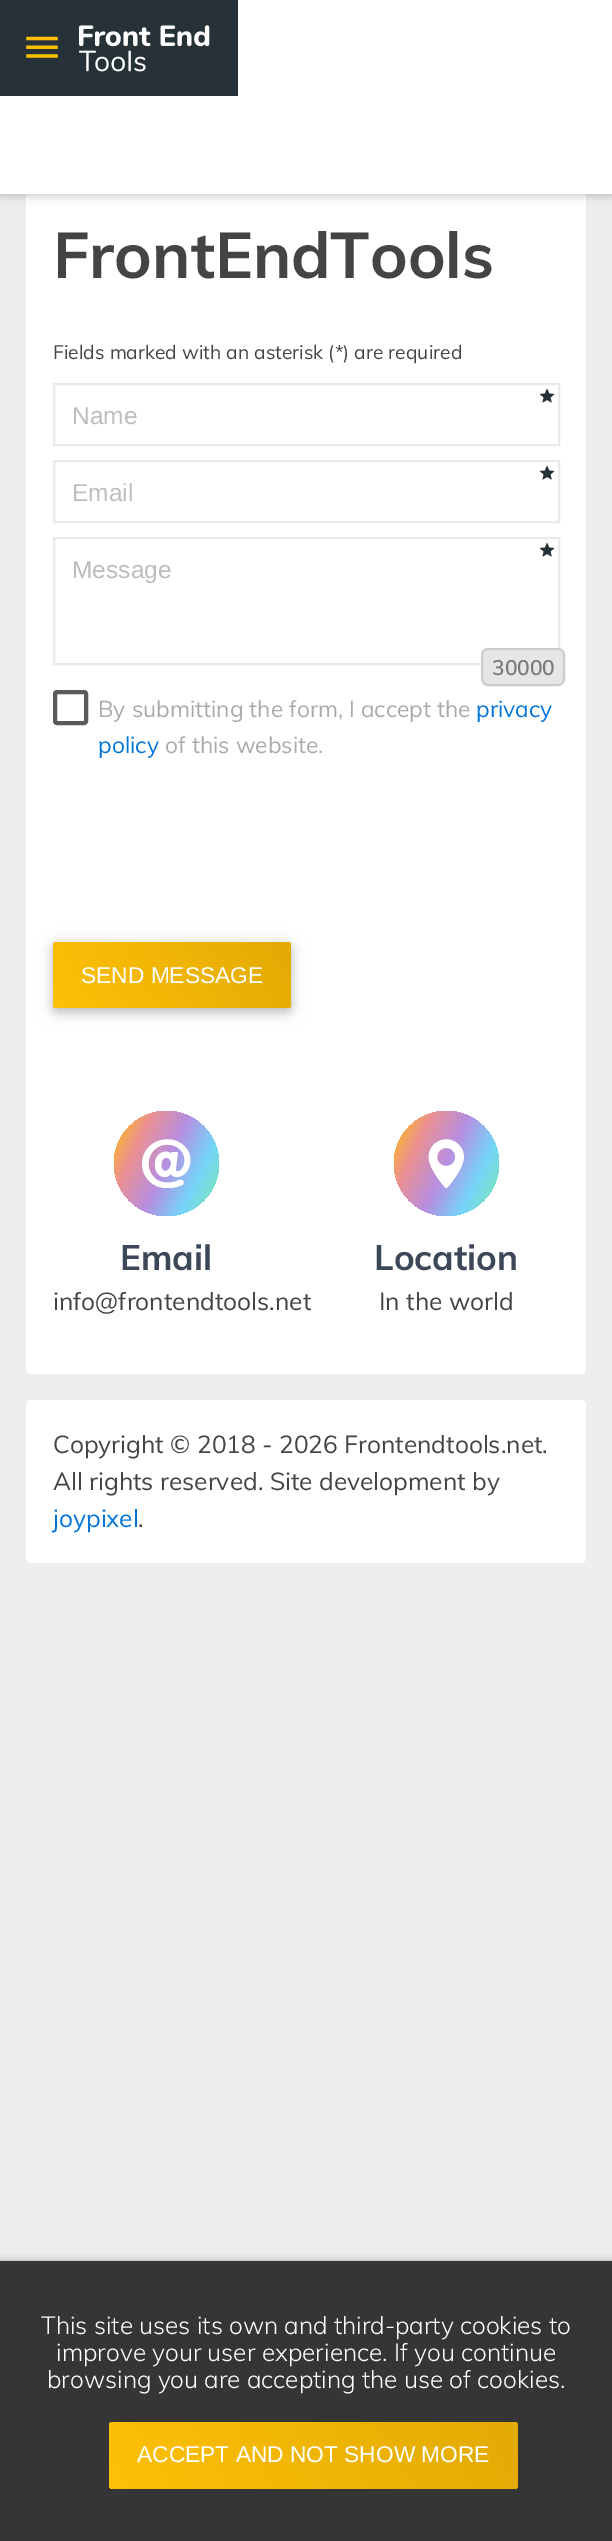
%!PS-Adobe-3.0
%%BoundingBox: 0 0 612 2541
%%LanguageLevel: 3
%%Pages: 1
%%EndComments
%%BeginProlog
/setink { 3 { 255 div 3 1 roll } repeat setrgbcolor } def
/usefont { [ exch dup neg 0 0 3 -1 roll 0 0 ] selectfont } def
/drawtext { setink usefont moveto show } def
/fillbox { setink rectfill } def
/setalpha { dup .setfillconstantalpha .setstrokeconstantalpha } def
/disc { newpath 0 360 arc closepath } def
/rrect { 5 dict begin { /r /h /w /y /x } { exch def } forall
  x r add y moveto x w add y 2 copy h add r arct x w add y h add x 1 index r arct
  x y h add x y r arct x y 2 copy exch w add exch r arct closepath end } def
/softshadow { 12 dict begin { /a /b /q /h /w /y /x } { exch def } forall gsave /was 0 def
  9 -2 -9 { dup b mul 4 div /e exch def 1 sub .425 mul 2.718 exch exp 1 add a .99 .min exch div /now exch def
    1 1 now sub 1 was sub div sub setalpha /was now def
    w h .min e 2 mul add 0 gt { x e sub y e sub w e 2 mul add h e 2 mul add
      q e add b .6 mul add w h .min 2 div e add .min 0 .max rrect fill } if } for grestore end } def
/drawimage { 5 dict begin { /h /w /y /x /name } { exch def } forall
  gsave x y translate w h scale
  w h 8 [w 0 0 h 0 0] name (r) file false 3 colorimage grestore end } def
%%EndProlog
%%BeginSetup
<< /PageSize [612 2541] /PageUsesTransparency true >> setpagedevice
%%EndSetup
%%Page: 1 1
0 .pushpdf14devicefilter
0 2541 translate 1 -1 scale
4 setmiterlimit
0 0 612 2541 238 238 238 fillbox
255 255 255 setink
26 123 560 1251 5 rrect fill
0 0 0 setink
0 2 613 194 0 4.5 0.2 softshadow
0 0 612 194 255 255 255 fillbox
0 0 238 96 38 50 56 fillbox
(assets/img1.rgb) 26 36 32 22 drawimage
(assets/img2.rgb) 79 25 131 47 drawimage
(FrontEndTools) 53 278 /Muli-Bold 63.75 68 68 68 drawtext
(Fields marked with an asterisk \(*\) are required) 53 359 /Muli-Regular 19.25 68 68 68 drawtext
(assets/img3.rgb) 539 388 16 15 drawimage
234 234 234 setink
2 setlinewidth
54 384 505 61 rectstroke
(Name) 72 424 /LiberationSans-Regular 24.5 189 189 189 drawtext
(assets/img3.rgb) 539 465 16 15 drawimage
234 234 234 setink
54 461 505 61 rectstroke
(Email) 72 501 /LiberationSans-Regular 24.5 189 189 189 drawtext
(assets/img3.rgb) 539 542 16 15 drawimage
234 234 234 setink
54 538 505 126 rectstroke
(Message) 72 578 /LiberationSans-Regular 24.5 189 189 189 drawtext
230 230 230 setink
482 649 82 36 6 rrect gsave fill grestore
204 204 204 setink
stroke
(30000) 492 675 /Muli-SemiBold 21 121 121 121 drawtext
90 90 90 setink
4 setlinewidth
55 692 31 31 2 rrect stroke
(By submitting the form, I accept the) 98 717 /Muli-Regular 22.75 170 170 170 drawtext
(privacy) 476 717 /Muli-Regular 22.75 2 117 216 drawtext
(policy) 98 753 /Muli-Regular 22.75 2 117 216 drawtext
(of this website.) 165 753 /Muli-Regular 22.75 170 170 170 drawtext
0 0 0 setink
53 945 238 67 4 9 0.12 softshadow
53 945 238 67 4 4.5 0.16 softshadow
gsave 53 942 238 66 4 rrect clip newpath
<< /ShadingType 2 /ColorSpace /DeviceRGB /Coords [68 1035 275 915] /Extend [true true] /Function << /FunctionType 2 /Domain [0 1] /C0 [1 0.757 0.027] /C1 [0.886 0.667 0.016] /N 1 >> >> shfill grestore
(SEND MESSAGE) 81 983 /LiberationSans-Regular 22.75 255 255 255 drawtext
gsave 166.5 1163.5 52.5 disc clip newpath
<< /ShadingType 2 /ColorSpace /DeviceRGB /Coords [103 1134 229 1193] /Extend [true true] /Function << /FunctionType 3 /Domain [0 1] /Functions [<< /FunctionType 2 /Domain [0 1] /C0 [1 0.757 0] /C1 [0.925 0.569 0.569] /N 1 >> << /FunctionType 2 /Domain [0 1] /C0 [0.925 0.569 0.569] /C1 [0.722 0.557 0.878] /N 1 >> << /FunctionType 2 /Domain [0 1] /C0 [0.722 0.557 0.878] /C1 [0.459 0.831 0.976] /N 1 >> << /FunctionType 2 /Domain [0 1] /C0 [0.459 0.831 0.976] /C1 [0.494 0.918 0.663] /N 1 >>] /Bounds [0.25 0.5 0.75] /Encode [0 1 0 1 0 1 0 1] >> >> shfill grestore
(assets/img4.rgb) 142 1139 49 49 drawimage
(Email) 120 1270 /Muli-Bold 35 60 72 88 drawtext
(info@frontendtools.net) 53 1310 /Muli-Regular 24.5 68 68 68 drawtext
gsave 446.5 1163.5 52.5 disc clip newpath
<< /ShadingType 2 /ColorSpace /DeviceRGB /Coords [383 1134 509 1193] /Extend [true true] /Function << /FunctionType 3 /Domain [0 1] /Functions [<< /FunctionType 2 /Domain [0 1] /C0 [1 0.757 0] /C1 [0.925 0.569 0.569] /N 1 >> << /FunctionType 2 /Domain [0 1] /C0 [0.925 0.569 0.569] /C1 [0.722 0.557 0.878] /N 1 >> << /FunctionType 2 /Domain [0 1] /C0 [0.722 0.557 0.878] /C1 [0.459 0.831 0.976] /N 1 >> << /FunctionType 2 /Domain [0 1] /C0 [0.459 0.831 0.976] /C1 [0.494 0.918 0.663] /N 1 >>] /Bounds [0.25 0.5 0.75] /Encode [0 1 0 1 0 1 0 1] >> >> shfill grestore
(assets/img5.rgb) 428 1139 36 49 drawimage
(Location) 374 1270 /Muli-Bold 35 60 72 88 drawtext
(In the world) 379 1310 /Muli-Regular 24.5 68 68 68 drawtext
255 255 255 setink
26 1400 560 163 5 rrect fill
(Copyright © 2018 - 2026 Frontendtools.net.) 53 1453 /Muli-Regular 24.5 68 68 68 drawtext
(All rights reserved. Site development by) 53 1490 /Muli-Regular 24.5 68 68 68 drawtext
(joypixel) 53 1527 /Muli-Regular 24.5 2 117 216 drawtext
(.) 138 1527 /Muli-Regular 24.5 68 68 68 drawtext
0 0 0 setink
0 2263 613 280 0 4.5 0.48 softshadow
0 2261 612 280 53 53 53 fillbox
(This site uses its own and third-party cookies to) 41 2334 /Muli-Light 24.5 255 255 255 drawtext
(improve your user experience. If you continue) 56 2361 /Muli-Light 24.5 255 255 255 drawtext
(browsing you are accepting the use of cookies.) 47 2388 /Muli-Light 24.5 255 255 255 drawtext
gsave 109 2422 409 67 4 rrect clip newpath
<< /ShadingType 2 /ColorSpace /DeviceRGB /Coords [145 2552 481 2358] /Extend [true true] /Function << /FunctionType 2 /Domain [0 1] /C0 [1 0.757 0.027] /C1 [0.886 0.667 0.016] /N 1 >> >> shfill grestore
(ACCEPT AND NOT SHOW MORE) 137 2462 /LiberationSans-Regular 22.75 255 255 255 drawtext
.poppdf14devicefilter showpage
%%EOF
